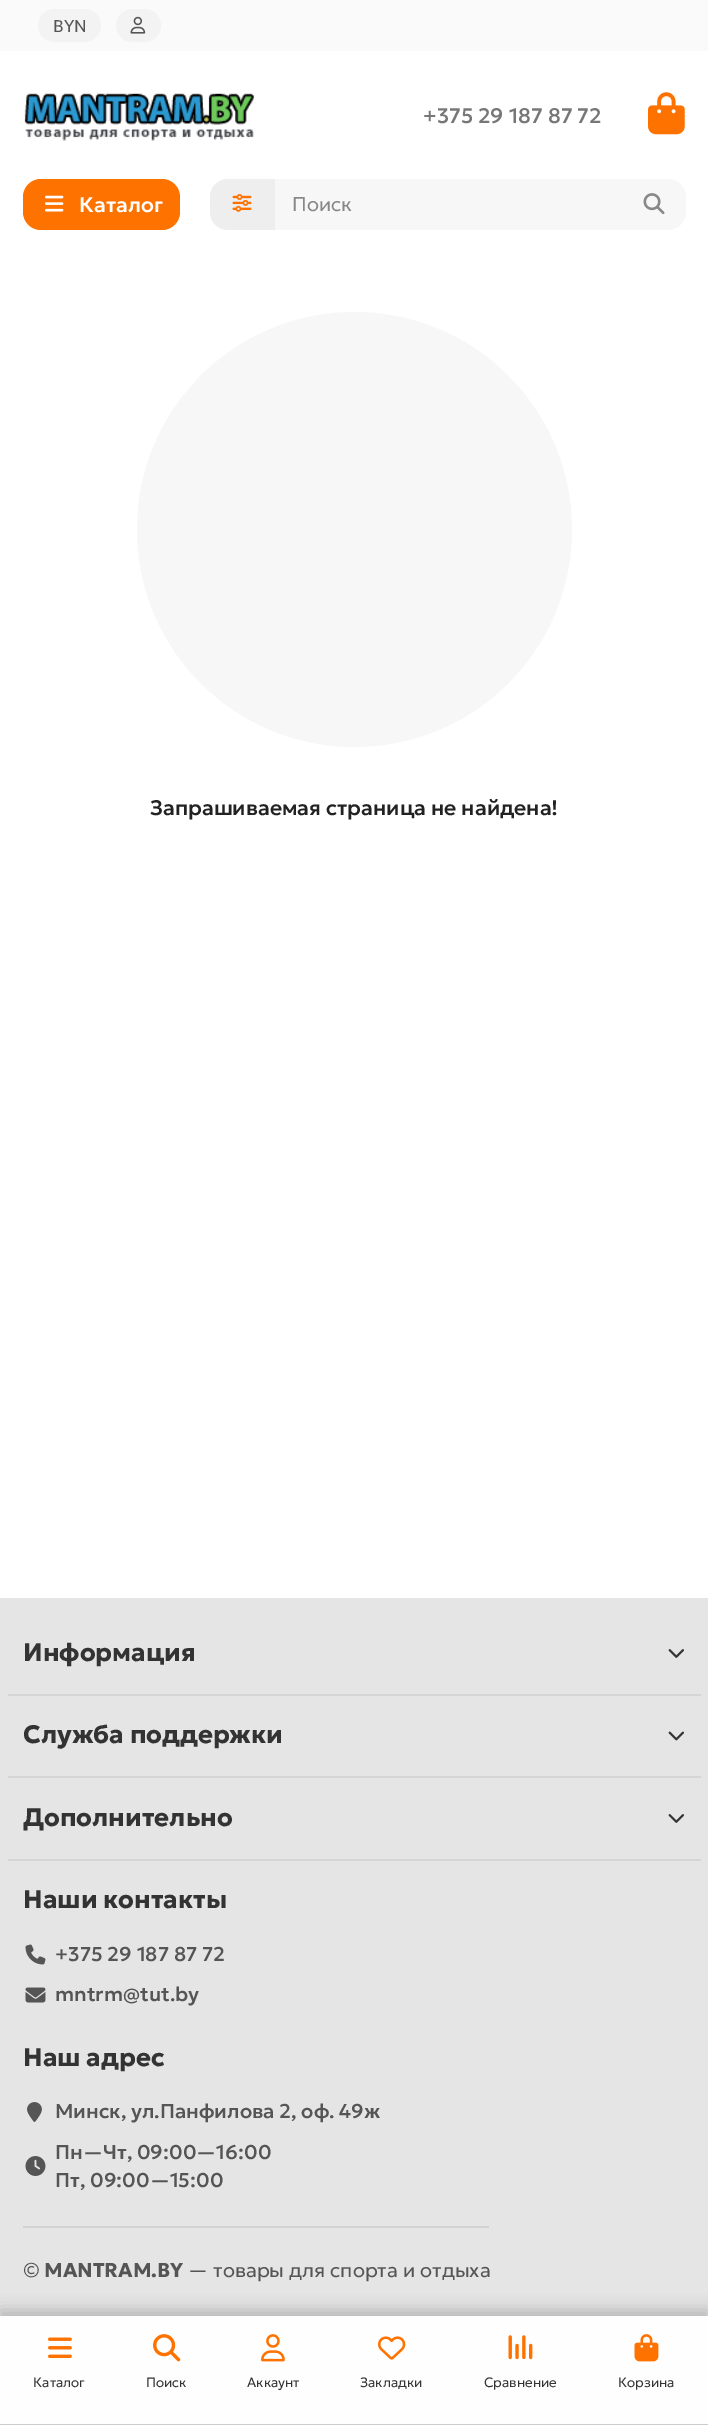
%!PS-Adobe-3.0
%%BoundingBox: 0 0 708 2425
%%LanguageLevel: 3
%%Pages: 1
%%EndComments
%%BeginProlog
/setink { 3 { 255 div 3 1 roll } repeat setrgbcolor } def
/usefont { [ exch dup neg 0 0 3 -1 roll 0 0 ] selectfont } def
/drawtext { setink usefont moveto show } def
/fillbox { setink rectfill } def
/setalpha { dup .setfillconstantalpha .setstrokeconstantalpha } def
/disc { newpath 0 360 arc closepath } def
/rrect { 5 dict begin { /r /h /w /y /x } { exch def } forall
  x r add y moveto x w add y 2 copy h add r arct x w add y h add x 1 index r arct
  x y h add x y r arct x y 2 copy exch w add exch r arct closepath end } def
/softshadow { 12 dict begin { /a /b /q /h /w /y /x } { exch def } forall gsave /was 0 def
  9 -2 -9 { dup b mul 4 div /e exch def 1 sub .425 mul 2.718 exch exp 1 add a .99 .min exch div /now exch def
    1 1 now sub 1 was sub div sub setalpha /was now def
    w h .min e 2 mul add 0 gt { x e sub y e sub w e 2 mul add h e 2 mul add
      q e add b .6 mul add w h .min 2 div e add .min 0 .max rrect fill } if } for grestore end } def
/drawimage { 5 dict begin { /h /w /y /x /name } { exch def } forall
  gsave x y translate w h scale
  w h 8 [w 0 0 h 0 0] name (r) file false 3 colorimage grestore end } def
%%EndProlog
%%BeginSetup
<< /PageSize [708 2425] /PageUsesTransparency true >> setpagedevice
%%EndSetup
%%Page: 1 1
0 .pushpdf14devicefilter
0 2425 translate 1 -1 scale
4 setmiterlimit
0 0 708 2425 255 255 255 fillbox
0 0 708 51 250 250 250 fillbox
243 243 243 setink
38 9 63 33 16.5 rrect fill
(BYN) 53 32 /Geologica-Light 17 85 85 85 drawtext
243 243 243 setink
116 9 45 33 16.5 rrect fill
(assets/img1.rgb) 130 16 16 18 drawimage
(assets/img2.rgb) 24 93 231 48 drawimage
(+375 29 187 87 72) 423 123 /Geologica-Medium 21 119 119 119 drawtext
(assets/img3.rgb) 648 92 37 43 drawimage
254 114 0 setink
23 179 157 51 18 rrect fill
(assets/img4.rgb) 45 195 19 17 drawimage
(Каталог) 79 212 /Geologica-Medium 21 255 255 255 drawtext
238 238 238 setink
228 179 moveto 275 179 lineto 275 230 lineto 228 230 lineto 218 230 210 222 210 212 curveto 210 197 lineto 210 187 218 179 228 179 curveto closepath fill
(assets/img5.rgb) 232 194 20 18 drawimage
247 247 247 setink
275 179 moveto 668 179 lineto 678 179 686 187 686 197 curveto 686 212 lineto 686 222 678 230 668 230 curveto 275 230 lineto closepath fill
(Поиск) 292 211 /Geologica-Light 20 136 136 136 drawtext
(assets/img6.rgb) 643 193 22 22 drawimage
247 247 247 setink
354.5 529.5 217.5 disc fill
(Запрашиваемая страница не найдена!) 150 815 /Geologica-Medium 21 34 34 34 drawtext
0 1598 708 718 229 229 229 fillbox
(Информация) 23 1661 /Geologica-Bold 25.25 51 51 51 drawtext
(assets/img7.rgb) 668 1649 16 9 drawimage
8 1694 693 2 213 213 213 fillbox
(Служба поддержки) 23 1743 /Geologica-Bold 25.25 51 51 51 drawtext
(assets/img8.rgb) 668 1731 16 10 drawimage
8 1776 693 2 213 213 213 fillbox
(Дополнительно) 23 1826 /Geologica-Bold 25.25 51 51 51 drawtext
(assets/img7.rgb) 668 1814 16 9 drawimage
8 1859 693 2 213 213 213 fillbox
(Наши контакты) 23 1908 /Geologica-Bold 25.25 51 51 51 drawtext
(assets/img9.rgb) 25 1944 21 21 drawimage
(+375 29 187 87 72) 55 1961 /Geologica-Medium 20 85 85 85 drawtext
(assets/img10.rgb) 25 1987 21 16 drawimage
(mntrm@tut.by) 55 2001 /Geologica-Medium 20 85 85 85 drawtext
(Наш адрес) 23 2066 /Geologica-Bold 25.25 51 51 51 drawtext
(assets/img11.rgb) 27 2102 15 20 drawimage
(Минск, ул.Панфилова 2, оф. 49ж) 55 2118 /Geologica-Medium 20 85 85 85 drawtext
(Пн—Чт, 09:00—16:00) 55 2159 /Geologica-Medium 20 85 85 85 drawtext
(assets/img12.rgb) 25 2156 21 20 drawimage
(Пт, 09:00—15:00) 55 2187 /Geologica-Medium 20 85 85 85 drawtext
23 2226 466 2 211 211 211 fillbox
(©) 23 2277 /Geologica-Light 20 85 85 85 drawtext
(MANTRAM.BY) 44 2277 /Geologica-Bold 20 85 85 85 drawtext
(— товары для спорта и отдыха) 188 2277 /Geologica-Light 20 85 85 85 drawtext
0 0 0 setink
0 2310 708 110 0 7.5 0.2 softshadow
0 2316 708 108 254 254 254 fillbox
0 2424 708 1 204 204 204 fillbox
(assets/img13.rgb) 48 2337 24 21 drawimage
(Каталог) 33 2387 /Geologica-Light 13.5 51 51 51 drawtext
(assets/img14.rgb) 153 2334 28 28 drawimage
(Поиск) 146 2387 /Geologica-Light 13.5 51 51 51 drawtext
(assets/img15.rgb) 261 2334 24 28 drawimage
(Аккаунт) 247 2387 /Geologica-Light 13.5 51 51 51 drawtext
(assets/img16.rgb) 378 2336 28 24 drawimage
(Закладки) 360 2387 /Geologica-Light 13.5 51 51 51 drawtext
(assets/img17.rgb) 508 2335 25 25 drawimage
(Сравнение) 484 2387 /Geologica-Light 13.5 51 51 51 drawtext
(assets/img18.rgb) 634 2334 25 28 drawimage
(Корзина) 618 2387 /Geologica-Light 13.5 51 51 51 drawtext
.poppdf14devicefilter showpage
%%EOF
